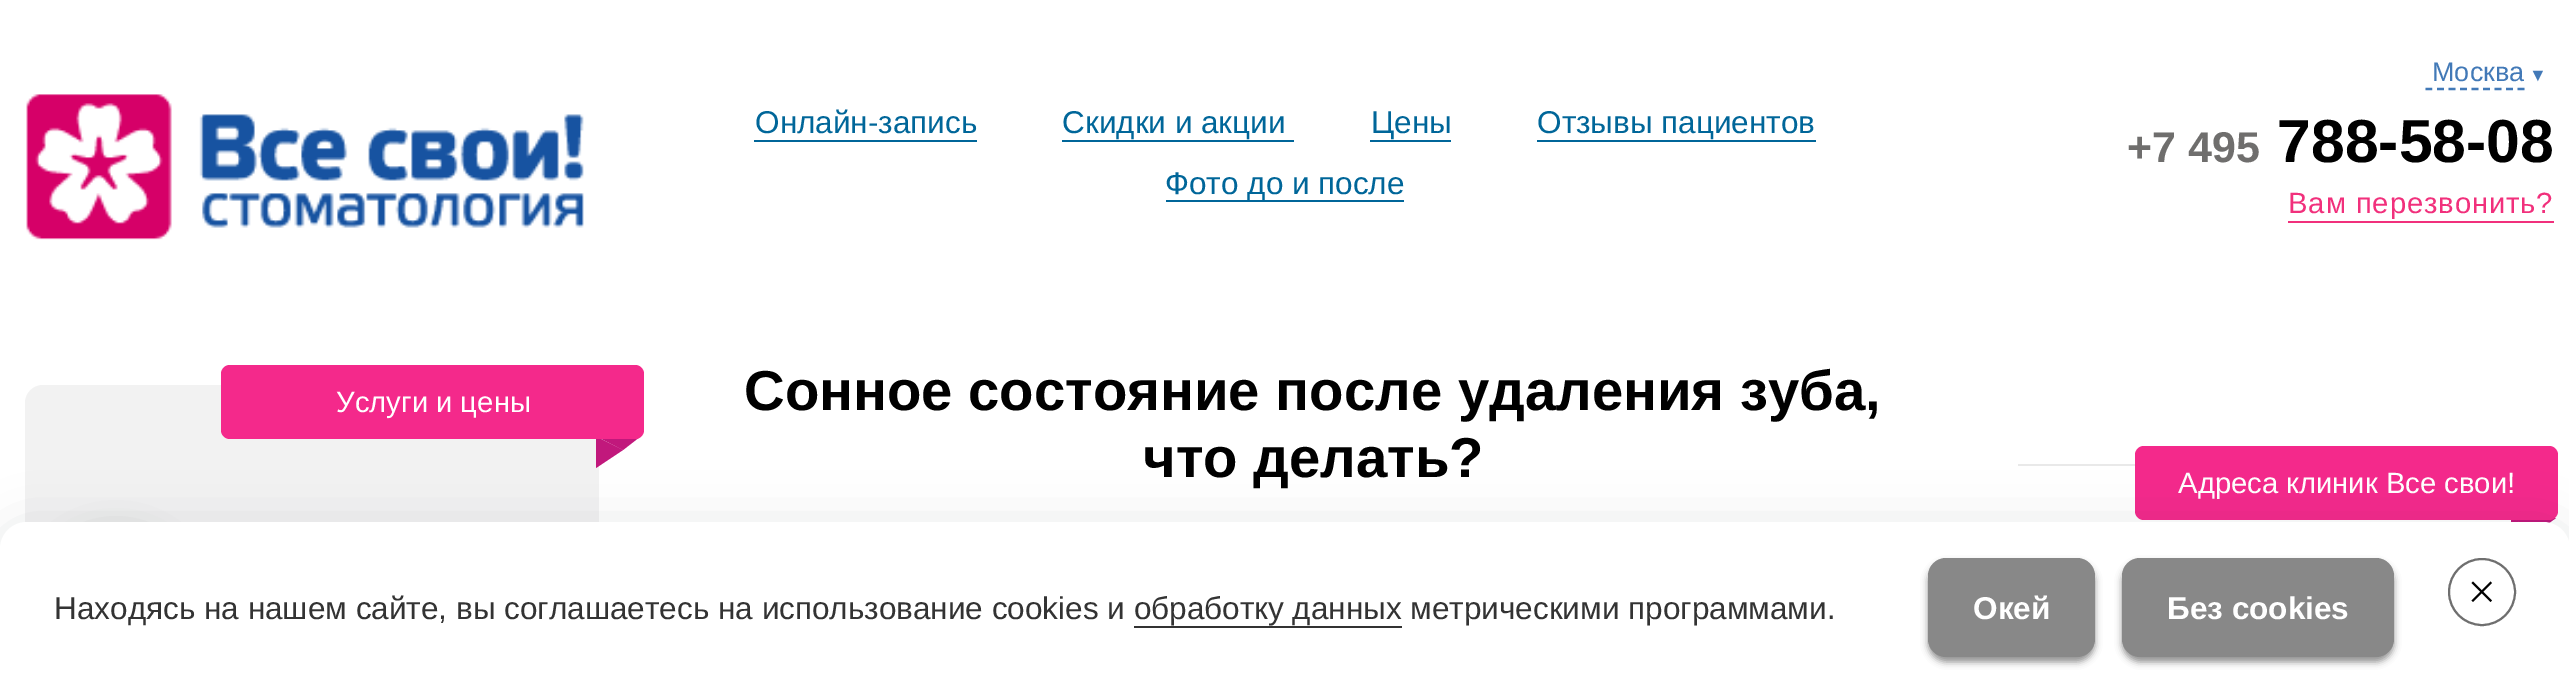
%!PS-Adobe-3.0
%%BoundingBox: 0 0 2569 693
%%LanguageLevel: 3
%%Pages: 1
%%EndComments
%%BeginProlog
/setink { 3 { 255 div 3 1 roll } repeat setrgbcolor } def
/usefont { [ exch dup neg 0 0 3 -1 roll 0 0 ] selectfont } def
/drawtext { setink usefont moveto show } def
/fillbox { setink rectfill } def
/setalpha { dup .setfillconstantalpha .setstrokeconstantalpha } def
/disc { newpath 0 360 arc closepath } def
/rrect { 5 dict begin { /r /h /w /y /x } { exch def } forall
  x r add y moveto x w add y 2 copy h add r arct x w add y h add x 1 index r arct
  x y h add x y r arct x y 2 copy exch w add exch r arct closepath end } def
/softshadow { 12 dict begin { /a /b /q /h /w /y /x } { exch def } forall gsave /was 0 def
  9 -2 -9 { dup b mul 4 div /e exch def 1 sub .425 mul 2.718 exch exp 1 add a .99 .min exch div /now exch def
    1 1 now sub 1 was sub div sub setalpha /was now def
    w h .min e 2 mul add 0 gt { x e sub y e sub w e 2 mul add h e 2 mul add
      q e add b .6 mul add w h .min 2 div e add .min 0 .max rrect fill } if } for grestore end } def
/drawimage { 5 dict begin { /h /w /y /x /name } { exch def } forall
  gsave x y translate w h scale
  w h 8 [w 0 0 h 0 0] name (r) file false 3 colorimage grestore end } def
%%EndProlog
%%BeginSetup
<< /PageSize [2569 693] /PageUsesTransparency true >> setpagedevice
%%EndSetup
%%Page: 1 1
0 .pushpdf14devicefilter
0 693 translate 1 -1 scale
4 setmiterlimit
0 0 2569 693 255 255 255 fillbox
(assets/img1.rgb) 26 94 558 146 drawimage
(Онлайн-запись) 755 133 /LiberationSans-Regular 31.5 0 102 153 drawtext
754 140 223 2 0 102 153 fillbox
(Скидки и акции) 1062 133 /LiberationSans-Regular 31.5 0 102 153 drawtext
1062 140 232 2 0 102 153 fillbox
(Цены) 1371 133 /LiberationSans-Regular 31.5 0 102 153 drawtext
1370 140 81 2 0 102 153 fillbox
(Отзывы пациентов) 1537 133 /LiberationSans-Regular 31.5 0 102 153 drawtext
1537 140 279 2 0 102 153 fillbox
1166 200 238 2 0 102 153 fillbox
(Фото до и после) 1165 194 /LiberationSans-Regular 31.5 0 102 153 drawtext
(Москва) 2432 81 /LiberationSans-Regular 27 66 121 183 drawtext
2.2 setlinewidth
[6.75 4.77] 0 setdash
2425.5 89 moveto 2524.5 89 lineto stroke
(▼) 2529 81 /LiberationSans-Regular 18 66 121 183 drawtext
(+7 495) 2127 162 /LiberationSans-Bold 43 111 110 109 drawtext
(788-58-08) 2277 162 /LiberationSans-Bold 60.75 0 0 0 drawtext
2288 221 266 2 241 48 124 fillbox
/LiberationSans-Regular 29.25 usefont
2288 213 moveto 0.9 0 (Вам перезвонить?) ashow
242 242 242 setink
25 385 574 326 18 rrect fill
193 24 124 setink
596 436 moveto 641 436 lineto 623 450 lineto closepath fill
596 468 moveto 596 436.5 lineto 623 450 lineto closepath fill
244 41 139 setink
221 365 423 74 9 rrect fill
(Услуги и цены) 336 412 /LiberationSans-Regular 29.25 255 255 255 drawtext
(Сонное состояние после удаления зуба,) 744 410 /LiberationSans-Bold 56.25 0 0 0 drawtext
(что делать?) 1143 477 /LiberationSans-Bold 56.25 0 0 0 drawtext
233 233 233 setink
2018 464 moveto 2513 464 lineto 2511 466 lineto 2018 466 lineto closepath fill
193 24 124 setink
2511 518 moveto 2556 518 lineto 2538 531 lineto closepath fill
2511 549 moveto 2511 517.5 lineto 2538 531 lineto closepath fill
244 41 139 setink
2135 446 423 74 9 rrect fill
(Адреса клиник Все свои!) 2178 493 /LiberationSans-Regular 29.25 255 255 255 drawtext
0 0 0 setink
45 536 142 141 70.5 16 0.19 softshadow
16 24 40 setink
0 531 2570 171 27 27 0.14 softshadow
255 255 255 setink
27 522 moveto 2543 522 lineto 2558 522 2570 534 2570 549 curveto 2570 693 lineto 0 693 lineto 0 549 lineto 0 534 12 522 27 522 curveto closepath fill
(Находясь на нашем сайте, вы соглашаетесь на использование cookies и обработку данных метрическими программами.) 54 619 /LiberationSans-Regular 31.5 51 51 51 drawtext
1134 626 268 2 51 51 51 fillbox
34 34 34 setink
1928 563 167 99 18 3.5 0.5 softshadow
136 136 136 setink
1928 558 167 99 18 rrect fill
(Окей) 1973 619 /LiberationSans-Bold 31.5 255 255 255 drawtext
34 34 34 setink
2122 563 272 99 18 3.5 0.5 softshadow
136 136 136 setink
2122 558 272 99 18 rrect fill
(Без cookies) 2167 619 /LiberationSans-Bold 31.5 255 255 255 drawtext
111 111 111 setink
2 setlinewidth
[] 0 setdash
2482 592 33 disc stroke
0 0 0 setink
2490.5 581.5 moveto 2492 583 lineto 2473 602 lineto 2471.5 600.5 lineto closepath fill
2471.5 583 moveto 2473 581.5 lineto 2492 600.5 lineto 2490.5 602 lineto closepath fill
.poppdf14devicefilter showpage
%%EOF
